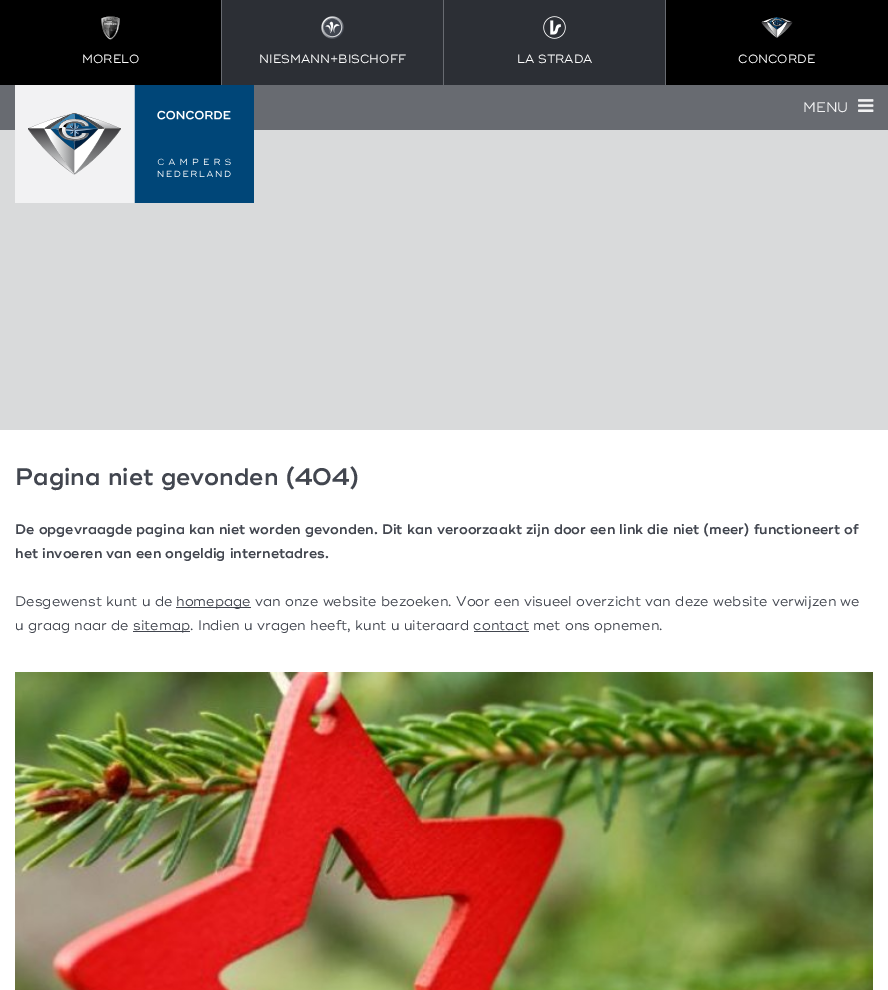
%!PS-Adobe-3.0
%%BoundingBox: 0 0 888 990
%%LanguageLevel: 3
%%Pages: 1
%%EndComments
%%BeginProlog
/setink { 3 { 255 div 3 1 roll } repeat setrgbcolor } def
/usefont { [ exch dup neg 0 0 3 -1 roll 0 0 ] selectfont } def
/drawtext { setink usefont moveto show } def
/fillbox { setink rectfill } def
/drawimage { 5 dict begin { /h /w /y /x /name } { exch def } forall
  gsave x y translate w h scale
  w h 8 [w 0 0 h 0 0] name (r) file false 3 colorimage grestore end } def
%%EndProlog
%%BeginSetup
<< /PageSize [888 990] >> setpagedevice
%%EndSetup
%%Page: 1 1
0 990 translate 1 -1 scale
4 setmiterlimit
0 0 888 990 255 255 255 fillbox
0 85 888 45 104 107 113 fillbox
222 0 443 85 44 47 53 fillbox
221 0 1 85 104 107 113 fillbox
0 0 221 85 0 0 0 fillbox
(assets/img1.rgb) 101 16 19 24 drawimage
(MORELO) 82 63 /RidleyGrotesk-Regular 12 255 255 255 drawtext
443 0 1 85 104 107 113 fillbox
(assets/img2.rgb) 321 16 23 23 drawimage
(NIESMANN+BISCHOFF) 259 63 /RidleyGrotesk-Regular 12 255 255 255 drawtext
665 0 1 85 104 107 113 fillbox
(assets/img3.rgb) 543 16 23 23 drawimage
(LA STRADA) 517 63 /RidleyGrotesk-Regular 12 255 255 255 drawtext
666 0 222 85 0 0 0 fillbox
(assets/img4.rgb) 761 17 32 21 drawimage
(CONCORDE) 738 63 /RidleyGrotesk-Regular 12 255 255 255 drawtext
0 130 888 300 217 218 219 fillbox
15 85 120 118 242 242 243 fillbox
(assets/img5.rgb) 28 85 226 118 drawimage
(MENU) 803 112 /RidleyGrotesk-Regular 14 242 242 243 drawtext
(assets/img6.rgb) 858 99 16 13 drawimage
(Pagina niet gevonden \(404\)) 15 485 /RidleyGrotesk-SemiBold 24 66 70 79 drawtext
(De opgevraagde pagina kan niet worden gevonden. Dit kan veroorzaakt zijn door een link die niet \(meer\) functioneert of) 15 534 /RidleyGrotesk-SemiBold 14 66 70 79 drawtext
(het invoeren van een ongeldig internetadres.) 15 558 /RidleyGrotesk-SemiBold 14 66 70 79 drawtext
(Desgewenst kunt u de) 15 606 /RidleyGrotesk-Regular 14 66 70 79 drawtext
176 607 75 1 66 70 79 fillbox
(homepage van onze website bezoeken. Voor een visueel overzicht van deze website verwijzen we) 176 606 /RidleyGrotesk-Regular 14 66 70 79 drawtext
(u graag naar de) 15 630 /RidleyGrotesk-Regular 14 66 70 79 drawtext
133 631 57 1 66 70 79 fillbox
(sitemap. Indien u vragen heeft, kunt u uiteraard contact met ons opnemen.) 133 630 /RidleyGrotesk-Regular 14 66 70 79 drawtext
474 631 55 1 66 70 79 fillbox
(assets/img7.rgb) 15 672 858 318 drawimage
showpage
%%EOF
